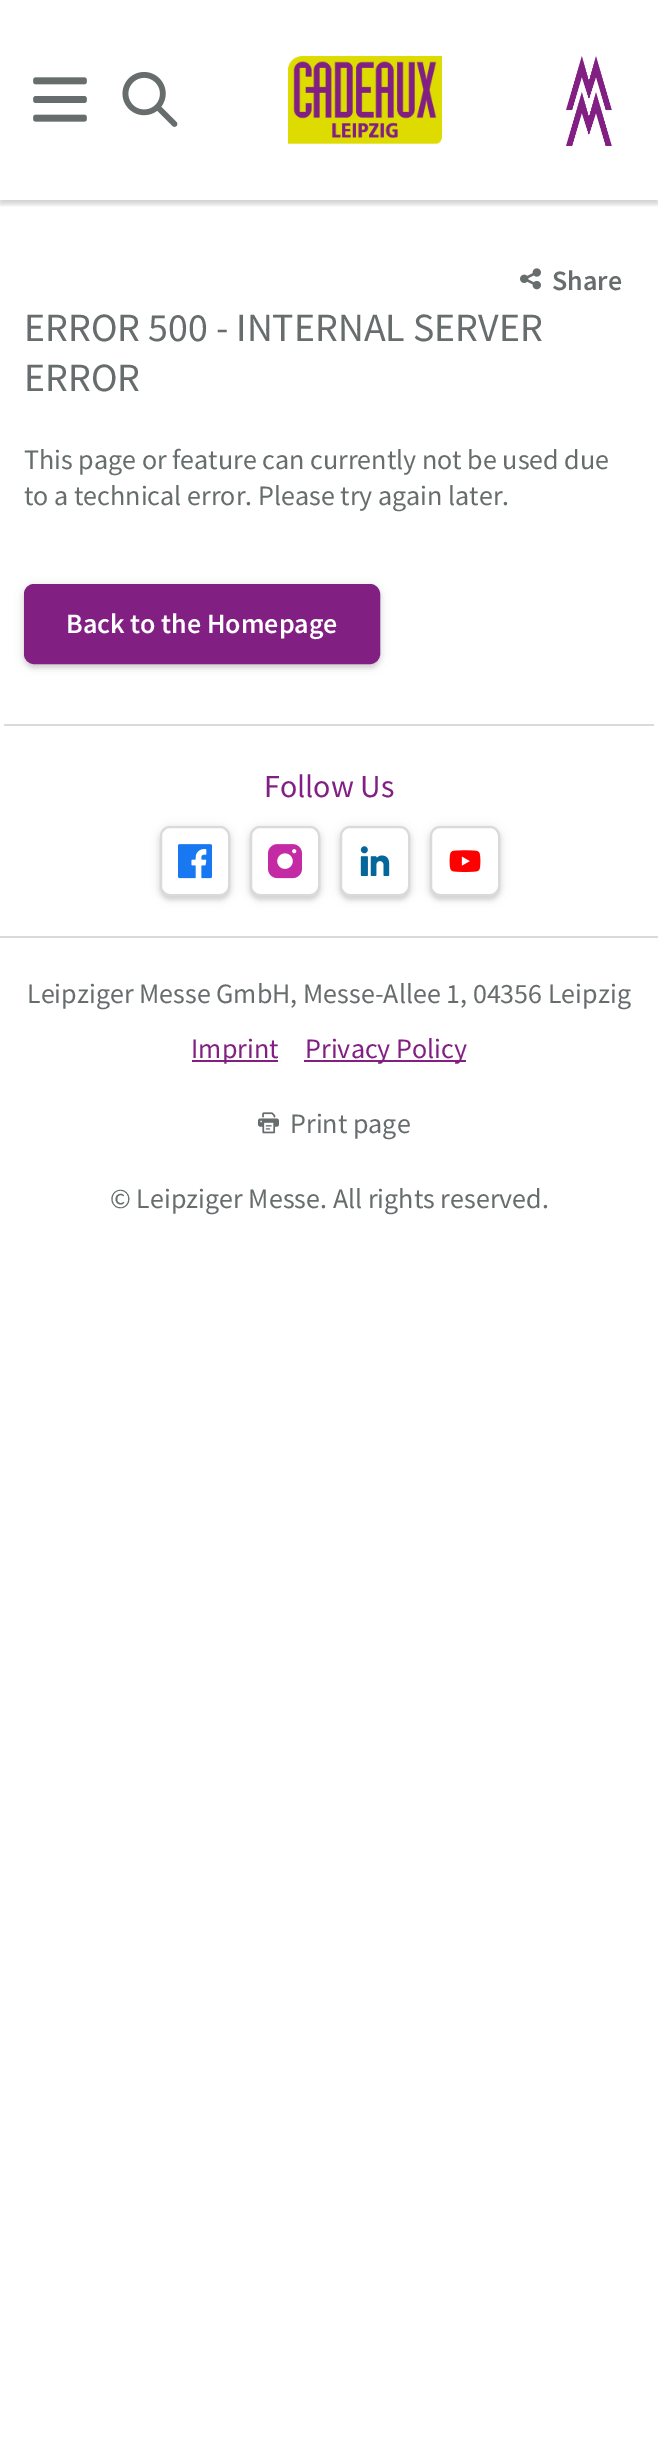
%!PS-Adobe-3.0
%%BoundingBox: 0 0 658 2447
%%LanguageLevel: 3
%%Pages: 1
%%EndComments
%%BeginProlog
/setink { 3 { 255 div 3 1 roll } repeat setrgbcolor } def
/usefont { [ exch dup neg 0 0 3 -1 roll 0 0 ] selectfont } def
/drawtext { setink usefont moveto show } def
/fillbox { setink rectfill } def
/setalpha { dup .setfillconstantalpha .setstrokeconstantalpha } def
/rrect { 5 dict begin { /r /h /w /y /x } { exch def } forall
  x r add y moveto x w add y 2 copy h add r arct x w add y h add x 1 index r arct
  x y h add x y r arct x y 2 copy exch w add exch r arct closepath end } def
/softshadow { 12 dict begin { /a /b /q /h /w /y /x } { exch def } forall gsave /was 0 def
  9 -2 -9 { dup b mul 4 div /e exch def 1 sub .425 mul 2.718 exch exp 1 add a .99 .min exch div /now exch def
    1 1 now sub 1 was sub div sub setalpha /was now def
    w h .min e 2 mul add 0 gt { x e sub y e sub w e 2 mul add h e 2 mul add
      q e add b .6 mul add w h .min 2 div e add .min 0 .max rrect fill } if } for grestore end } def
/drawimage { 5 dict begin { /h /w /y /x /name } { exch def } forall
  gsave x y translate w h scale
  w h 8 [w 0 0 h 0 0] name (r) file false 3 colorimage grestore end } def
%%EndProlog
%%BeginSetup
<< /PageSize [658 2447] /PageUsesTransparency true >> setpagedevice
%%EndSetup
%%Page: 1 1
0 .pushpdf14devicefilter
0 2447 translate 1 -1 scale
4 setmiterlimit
0 0 658 2447 255 255 255 fillbox
gsave
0 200 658 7 rectclip
0 0 0 setink
0 2 658 200 0 5 0.12 softshadow
grestore
gsave
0 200 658 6 rectclip
0 0 0 setink
0 4 658 200 0 2 0.1 softshadow
grestore
(assets/img1.rgb) 33 77 54 45 drawimage
(assets/img2.rgb) 122 71 56 56 drawimage
(assets/img3.rgb) 288 56 154 88 drawimage
(assets/img4.rgb) 566 56 46 90 drawimage
(assets/img5.rgb) 520 268 21 22 drawimage
(Share) 552 290 /SourceSansPro-SemiBold 28 103 108 108 drawtext
(ERROR 500 - INTERNAL SERVER) 24 341 /SourceSansPro-Regular 40 103 108 108 drawtext
(ERROR) 24 391 /SourceSansPro-Regular 40 103 108 108 drawtext
(This page or feature can currently not be used due) 24 469 /SourceSansPro-Regular 28 103 108 108 drawtext
(to a technical error. Please try again later.) 24 505 /SourceSansPro-Regular 28 103 108 108 drawtext
0 0 0 setink
24 586 356 80 10 5 0.12 softshadow
24 588 356 80 10 2 0.1 softshadow
130 31 130 setink
25 585 354 78 9 rrect gsave fill grestore
2 setlinewidth
stroke
(Back to the Homepage) 66 633 /SourceSansPro-SemiBold 28 255 255 255 drawtext
4 724 650 2 217 218 218 fillbox
(Follow Us) 264 797 /SourceSansPro-Regular 32 130 31 130 drawtext
0 0 0 setink
160 828 70 70 10 5 0.12 softshadow
160 830 70 70 10 2 0.1 softshadow
255 255 255 setink
161 827 68 68 9 rrect gsave fill grestore
217 218 218 setink
stroke
(assets/img6.rgb) 178 844 34 35 drawimage
0 0 0 setink
250 828 70 70 10 5 0.12 softshadow
250 830 70 70 10 2 0.1 softshadow
255 255 255 setink
251 827 68 68 9 rrect gsave fill grestore
217 218 218 setink
stroke
(assets/img7.rgb) 268 844 34 35 drawimage
0 0 0 setink
340 828 70 70 10 5 0.12 softshadow
340 830 70 70 10 2 0.1 softshadow
255 255 255 setink
341 827 68 68 9 rrect gsave fill grestore
217 218 218 setink
stroke
(assets/img8.rgb) 360 846 30 30 drawimage
0 0 0 setink
430 828 70 70 10 5 0.12 softshadow
430 830 70 70 10 2 0.1 softshadow
255 255 255 setink
431 827 68 68 9 rrect gsave fill grestore
217 218 218 setink
stroke
(assets/img9.rgb) 449 850 32 22 drawimage
0 936 658 2 217 218 218 fillbox
(Leipziger Messe GmbH, Messe-Allee 1, 04356 Leipzig) 27 1003 /SourceSansPro-Regular 28 103 108 108 drawtext
192 1060 86 2 130 31 130 fillbox
(Imprint) 191 1058 /SourceSansPro-Regular 28 130 31 130 drawtext
304 1060 162 2 130 31 130 fillbox
(Privacy Policy) 305 1058 /SourceSansPro-Regular 28 130 31 130 drawtext
(assets/img10.rgb) 258 1112 21 22 drawimage
(Print page) 290 1133 /SourceSansPro-Regular 28 103 108 108 drawtext
(© Leipziger Messe. All rights reserved.) 110 1208 /SourceSansPro-Regular 28 103 108 108 drawtext
.poppdf14devicefilter showpage
%%EOF
